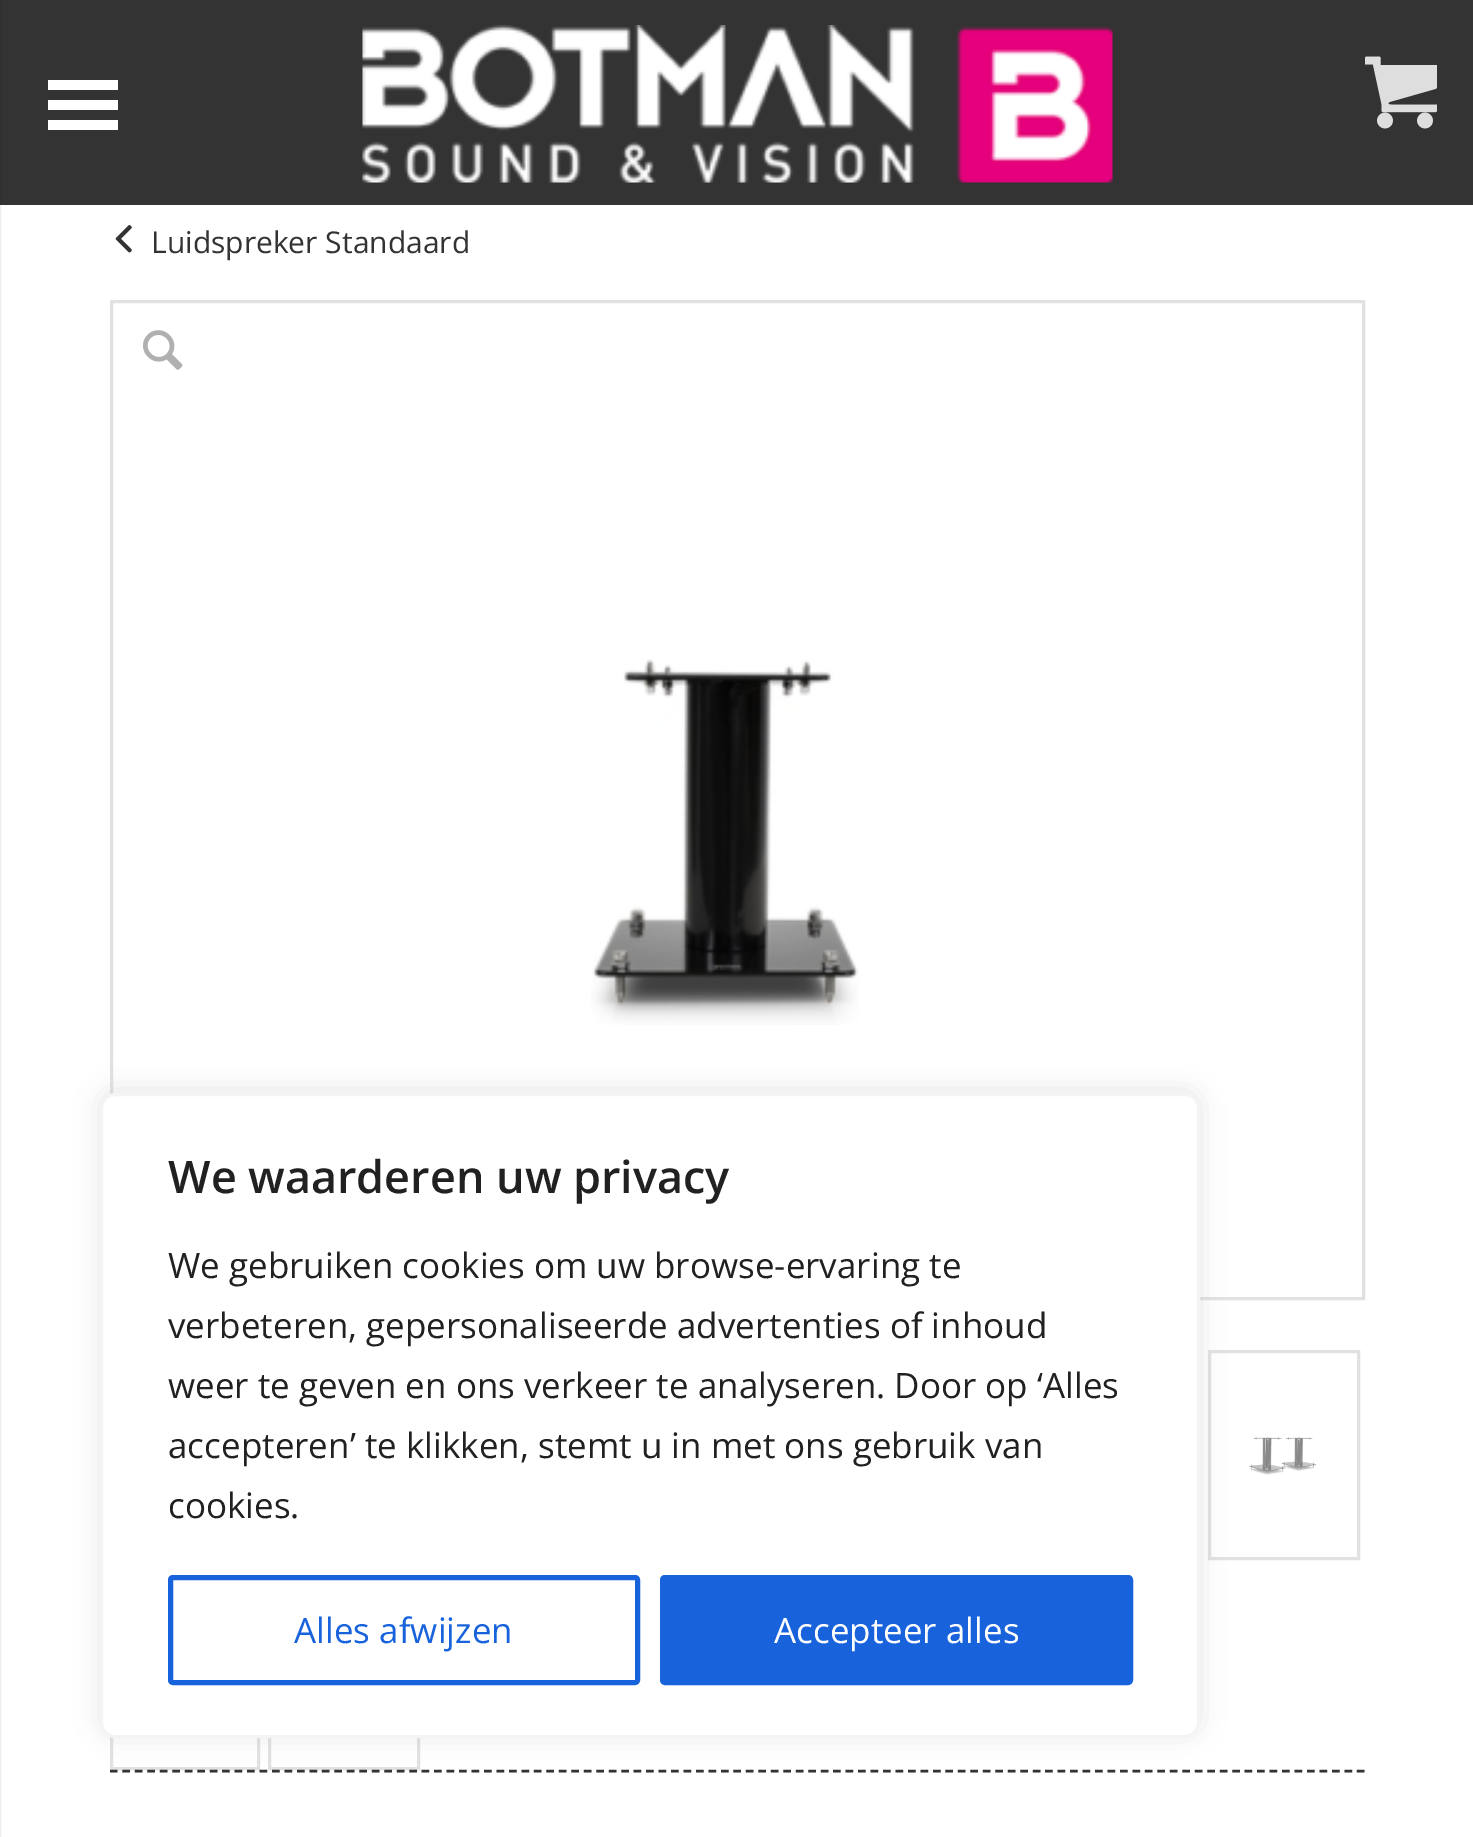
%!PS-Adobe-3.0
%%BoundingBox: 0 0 1473 1837
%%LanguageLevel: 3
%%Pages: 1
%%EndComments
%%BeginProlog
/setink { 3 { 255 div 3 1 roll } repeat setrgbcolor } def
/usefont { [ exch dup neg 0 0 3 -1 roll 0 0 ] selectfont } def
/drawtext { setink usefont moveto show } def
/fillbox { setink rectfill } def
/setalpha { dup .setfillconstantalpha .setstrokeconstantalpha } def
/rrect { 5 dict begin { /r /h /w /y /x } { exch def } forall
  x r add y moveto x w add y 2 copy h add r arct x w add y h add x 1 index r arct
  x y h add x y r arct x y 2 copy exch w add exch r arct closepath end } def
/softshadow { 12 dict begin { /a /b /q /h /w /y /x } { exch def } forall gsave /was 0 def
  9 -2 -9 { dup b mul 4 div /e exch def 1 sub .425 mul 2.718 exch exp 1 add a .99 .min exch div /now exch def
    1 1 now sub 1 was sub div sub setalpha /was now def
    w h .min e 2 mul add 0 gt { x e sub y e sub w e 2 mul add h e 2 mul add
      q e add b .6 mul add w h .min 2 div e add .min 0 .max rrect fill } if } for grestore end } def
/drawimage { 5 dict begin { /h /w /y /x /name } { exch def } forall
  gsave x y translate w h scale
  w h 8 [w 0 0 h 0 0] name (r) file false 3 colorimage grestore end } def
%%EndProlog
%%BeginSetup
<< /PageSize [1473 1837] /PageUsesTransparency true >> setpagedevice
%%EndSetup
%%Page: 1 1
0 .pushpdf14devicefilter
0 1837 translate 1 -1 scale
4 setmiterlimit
0 0 1473 1837 255 255 255 fillbox
0 0 1473 205 51 51 51 fillbox
0 0 0 setink
-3 0 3 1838 0 1 0.2 softshadow
48 100 70 10 255 255 255 fillbox
48 80 70 10 255 255 255 fillbox
48 120 70 10 255 255 255 fillbox
(assets/img1.rgb) 362 25 751 158 drawimage
(assets/img2.rgb) 1365 56 72 73 drawimage
(assets/img3.rgb) 115 225 17 28 drawimage
(Luidspreker Standaard) 151 253 /OpenSans-Regular 30 51 51 51 drawtext
225 225 225 setink
3 setlinewidth
111.5 301.5 1252 997 rectstroke
(assets/img4.rgb) 591 659 268 366 drawimage
1209.5 1351.5 149 207 rectstroke
(assets/img5.rgb) 1249 1436 67 39 drawimage
111.5 1561.5 147 207 rectstroke
269.5 1561.5 149 207 rectstroke
(assets/img6.rgb) 143 330 40 40 drawimage
51 51 51 setink
2.5 setlinewidth
[7.5 4.97] 0 setdash
110 1771 moveto 1365 1771 lineto stroke
172 171 171 setink
100 1090 1100 645 15 12.5 0.3 softshadow
255 255 255 setink
101.5 1094.5 1097 642 13.5 rrect gsave fill grestore
244 244 244 setink
3 setlinewidth
[] 0 setdash
stroke
(We waarderen uw privacy) 168 1193 /OpenSans-SemiBold 45 33 33 33 drawtext
(We gebruiken cookies om uw browse-ervaring te) 168 1278 /OpenSans-Regular 35 33 33 33 drawtext
(verbeteren, gepersonaliseerde advertenties of inhoud) 168 1338 /OpenSans-Regular 35 33 33 33 drawtext
(weer te geven en ons verkeer te analyseren. Door op ‘Alles) 168 1398 /OpenSans-Regular 35 33 33 33 drawtext
(accepteren’ te klikken, stemt u in met ons gebruik van) 168 1458 /OpenSans-Regular 35 33 33 33 drawtext
(cookies.) 168 1518 /OpenSans-Regular 35 33 33 33 drawtext
24 99 220 setink
5 setlinewidth
170.5 1577.5 467 105 2.5 rrect stroke
(Alles afwijzen) 294 1643 /OpenSans-Regular 35 24 99 220 drawtext
662.5 1577.5 468 105 2.5 rrect gsave fill grestore
stroke
(Accepteer alles) 774 1643 /OpenSans-Regular 35 255 255 255 drawtext
.poppdf14devicefilter showpage
%%EOF
